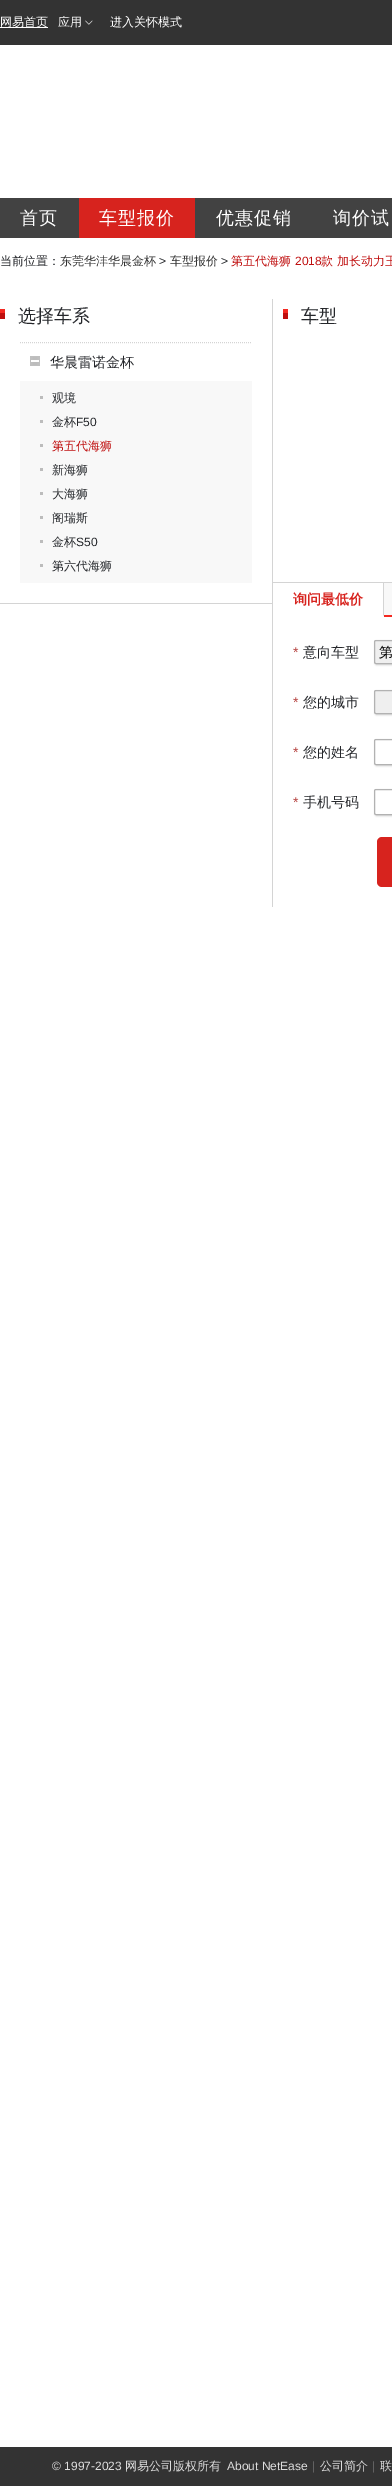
%!PS-Adobe-3.0
%%BoundingBox: 0 0 392 2486
%%LanguageLevel: 3
%%Pages: 1
%%EndComments
%%BeginProlog
/setink { 3 { 255 div 3 1 roll } repeat setrgbcolor } def
/usefont { [ exch dup neg 0 0 3 -1 roll 0 0 ] selectfont } def
/drawtext { setink usefont moveto show } def
/fillbox { setink rectfill } def
/setalpha { dup .setfillconstantalpha .setstrokeconstantalpha } def
/rrect { 5 dict begin { /r /h /w /y /x } { exch def } forall
  x r add y moveto x w add y 2 copy h add r arct x w add y h add x 1 index r arct
  x y h add x y r arct x y 2 copy exch w add exch r arct closepath end } def
/softshadow { 12 dict begin { /a /b /q /h /w /y /x } { exch def } forall gsave /was 0 def
  9 -2 -9 { dup b mul 4 div /e exch def 1 sub .425 mul 2.718 exch exp 1 add a .99 .min exch div /now exch def
    1 1 now sub 1 was sub div sub setalpha /was now def
    w h .min e 2 mul add 0 gt { x e sub y e sub w e 2 mul add h e 2 mul add
      q e add b .6 mul add w h .min 2 div e add .min 0 .max rrect fill } if } for grestore end } def
/drawimage { 5 dict begin { /h /w /y /x /name } { exch def } forall
  gsave x y translate w h scale
  w h 8 [w 0 0 h 0 0] name (r) file false 3 colorimage grestore end } def
%%EndProlog
%%BeginSetup
<< /PageSize [392 2486] /PageUsesTransparency true >> setpagedevice
%%EndSetup
%%Page: 1 1
0 .pushpdf14devicefilter
0 2486 translate 1 -1 scale
4 setmiterlimit
0 0 392 2486 255 255 255 fillbox
0 0 392 45 51 51 51 fillbox
0 27 48 1 255 255 255 fillbox
(网易首页) 0 26 /WenQuanYiZenHei-Medium 12 255 255 255 drawtext
(应用) 58 26 /WenQuanYiZenHei-Medium 12 255 255 255 drawtext
(assets/img1.rgb) 85 20 8 5 drawimage
(进入关怀模式) 110 26 /WenQuanYiZenHei-Medium 12 255 255 255 drawtext
0 198 392 40 66 66 66 fillbox
/WenQuanYiZenHei-Medium 18 usefont
255 255 255 setink
20 224 moveto 1 0 (首页) ashow
79 198 116 40 215 35 30 fillbox
255 255 255 setink
99 224 moveto 1 0 (车型报价) ashow
216 224 moveto 1 0 (优惠促销) ashow
333 224 moveto 1 0 (询价试) ashow
(当前位置：) 0 265 /WenQuanYiZenHei-Medium 12 37 39 43 drawtext
(东莞华沣华晨金杯) 60 265 /WenQuanYiZenHei-Medium 12 51 51 51 drawtext
(>) 159 265 /LiberationSans-Regular 12 37 39 43 drawtext
(车型报价) 170 265 /WenQuanYiZenHei-Medium 12 51 51 51 drawtext
(>) 221 265 /LiberationSans-Regular 12 37 39 43 drawtext
(第五代海狮) 231 265 /WenQuanYiZenHei-Medium 12 191 15 15 drawtext
(2018) 295 265 /LiberationSans-Regular 12 191 15 15 drawtext
(款 加长动力王) 321 265 /WenQuanYiZenHei-Medium 12 191 15 15 drawtext
0 603 272 1 212 212 212 fillbox
(assets/img2.rgb) 0 309 5 10 drawimage
(选择车系) 18 322 /WenQuanYiZenHei-Medium 18 37 39 43 drawtext
212 212 212 setink
[1 1] 0 setdash
20 342.5 moveto 252 342.5 lineto stroke
(assets/img3.rgb) 30 356 10 10 drawimage
(华晨雷诺金杯) 50 367 /WenQuanYiZenHei-Medium 14 37 39 43 drawtext
20 381 232 202 248 248 248 fillbox
(观境) 52 402 /WenQuanYiZenHei-Medium 12 37 39 43 drawtext
40 396 3 3 188 188 188 fillbox
(金杯) 52 426 /WenQuanYiZenHei-Medium 12 37 39 43 drawtext
40 420 3 3 188 188 188 fillbox
(F50) 76 426 /LiberationSans-Regular 12 37 39 43 drawtext
(第五代海狮) 52 450 /WenQuanYiZenHei-Medium 12 191 15 15 drawtext
40 444 3 3 188 188 188 fillbox
(新海狮) 52 474 /WenQuanYiZenHei-Medium 12 37 39 43 drawtext
40 468 3 3 188 188 188 fillbox
(大海狮) 52 498 /WenQuanYiZenHei-Medium 12 37 39 43 drawtext
40 492 3 3 188 188 188 fillbox
(阁瑞斯) 52 522 /WenQuanYiZenHei-Medium 12 37 39 43 drawtext
40 516 3 3 188 188 188 fillbox
(金杯) 52 546 /WenQuanYiZenHei-Medium 12 37 39 43 drawtext
40 540 3 3 188 188 188 fillbox
(S50) 76 546 /LiberationSans-Regular 12 37 39 43 drawtext
(第六代海狮) 52 570 /WenQuanYiZenHei-Medium 12 37 39 43 drawtext
40 564 3 3 188 188 188 fillbox
272 299 1 608 212 212 212 fillbox
(assets/img2.rgb) 283 309 5 10 drawimage
(车型) 301 322 /WenQuanYiZenHei-Medium 18 37 39 43 drawtext
384 583 8 32 248 248 248 fillbox
384 615 8 2 244 41 33 fillbox
272 582 120 1 212 212 212 fillbox
384 583 moveto 384 617 lineto 383 615 lineto 383 583 lineto closepath fill
255 255 255 setink
384 617 moveto 273 617 lineto 273 615 lineto 383 615 lineto closepath fill
(询问最低价) 293 604 /WenQuanYiZenHei-Bold 14 215 35 30 drawtext
(*) 293 657 /LiberationSans-Regular 14 185 74 72 drawtext
(意向车型) 303 657 /WenQuanYiZenHei-Medium 14 37 39 43 drawtext
204 204 204 setink
375 641 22 24 2 1 1 softshadow
239 239 239 setink
374.5 640.5 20 23 1.5 rrect gsave fill grestore
178 178 178 setink
[] 0 setdash
stroke
(第) 379 657 /WenQuanYiZenHei-Medium 14 0 0 0 drawtext
(*) 293 707 /LiberationSans-Regular 14 185 74 72 drawtext
(您的城市) 303 707 /WenQuanYiZenHei-Medium 14 37 39 43 drawtext
204 204 204 setink
375 691 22 24 2 1 1 softshadow
239 239 239 setink
374.5 690.5 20 23 1.5 rrect gsave fill grestore
178 178 178 setink
stroke
(*) 293 757 /LiberationSans-Regular 14 185 74 72 drawtext
(您的姓名) 303 757 /WenQuanYiZenHei-Medium 14 37 39 43 drawtext
204 204 204 setink
375 740 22 26 2 1 1 softshadow
255 255 255 setink
374.5 739.5 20 25 1.5 rrect gsave fill grestore
178 178 178 setink
stroke
(*) 293 807 /LiberationSans-Regular 14 185 74 72 drawtext
(手机号码) 303 807 /WenQuanYiZenHei-Medium 14 37 39 43 drawtext
204 204 204 setink
375 790 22 26 2 1 1 softshadow
255 255 255 setink
374.5 789.5 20 25 1.5 rrect gsave fill grestore
178 178 178 setink
stroke
215 35 30 setink
377 837 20 50 5 rrect fill
0 2447 392 39 51 51 51 fillbox
(© 1997-2023) 52 2470 /LiberationSans-Regular 12 221 221 221 drawtext
(网易公司版权所有) 125 2470 /WenQuanYiZenHei-Medium 12 221 221 221 drawtext
(About NetEase) 227 2470 /LiberationSans-Regular 12 221 221 221 drawtext
(|) 312 2470 /LiberationSans-Regular 12 97 97 97 drawtext
(公司简介) 320 2470 /WenQuanYiZenHei-Medium 12 221 221 221 drawtext
(|) 372 2470 /LiberationSans-Regular 12 97 97 97 drawtext
(联) 380 2470 /WenQuanYiZenHei-Medium 12 221 221 221 drawtext
.poppdf14devicefilter showpage
%%EOF
